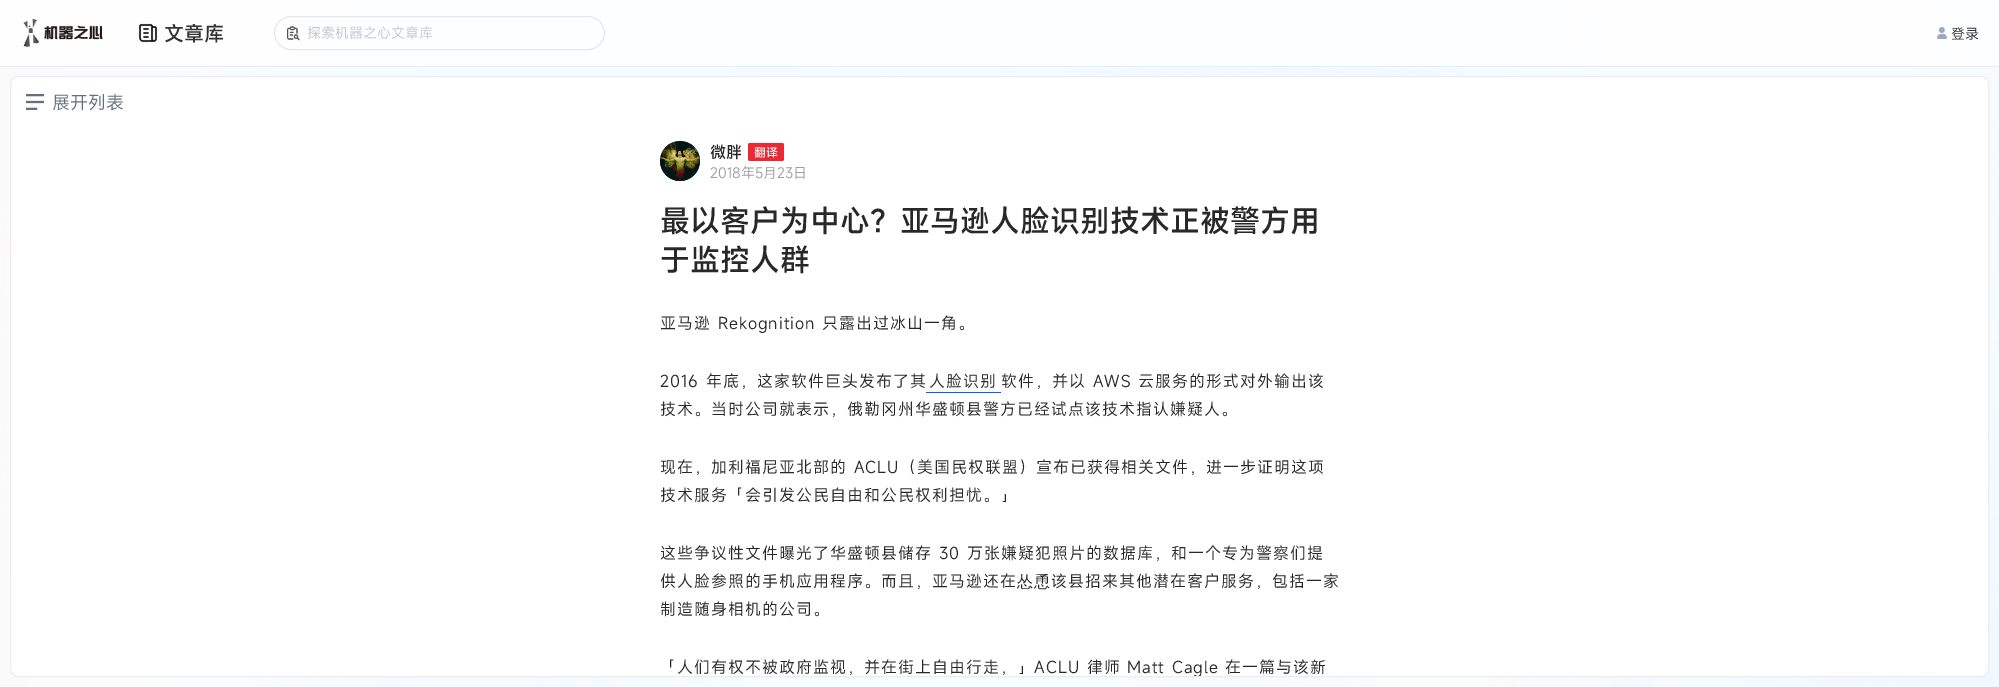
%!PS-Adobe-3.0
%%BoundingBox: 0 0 1999 687
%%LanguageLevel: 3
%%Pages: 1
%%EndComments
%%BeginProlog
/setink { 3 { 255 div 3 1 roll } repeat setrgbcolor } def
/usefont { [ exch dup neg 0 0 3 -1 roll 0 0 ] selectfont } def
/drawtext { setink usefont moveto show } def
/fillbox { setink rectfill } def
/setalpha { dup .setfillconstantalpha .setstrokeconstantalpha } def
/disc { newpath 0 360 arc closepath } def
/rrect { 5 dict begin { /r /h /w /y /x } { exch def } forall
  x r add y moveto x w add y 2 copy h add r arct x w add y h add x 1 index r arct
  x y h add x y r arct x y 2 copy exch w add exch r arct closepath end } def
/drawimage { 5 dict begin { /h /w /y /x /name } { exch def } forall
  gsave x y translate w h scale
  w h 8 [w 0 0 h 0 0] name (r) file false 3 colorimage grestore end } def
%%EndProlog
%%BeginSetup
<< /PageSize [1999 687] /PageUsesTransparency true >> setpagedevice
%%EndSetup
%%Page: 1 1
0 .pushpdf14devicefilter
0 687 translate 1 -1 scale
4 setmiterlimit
0 0 1999 687 255 255 255 fillbox
(assets/img1.rgb) 0 0 1999 687 drawimage
0 66 1999 1 235 236 241 fillbox
0.8 setalpha
0 0 1999 66 255 255 255 fillbox
1 setalpha
(assets/img2.rgb) 23 19 80 28 drawimage
(assets/img3.rgb) 138 23 20 20 drawimage
(文章库) 164 41 /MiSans-Medium 20 51 51 51 drawtext
230 231 236 setink
274.5 16.5 330 33 16.5 rrect stroke
(assets/img4.rgb) 287 26 13 15 drawimage
(探索机器之心文章库) 307 38 /MiSans-Regular 14 193 199 208 drawtext
(assets/img5.rgb) 1937 27 10 12 drawimage
(登录) 1951 39 /MiSans-Regular 14 51 51 51 drawtext
255 255 255 setink
10.5 76.5 1978 600 7.5 rrect gsave fill grestore
235 236 241 setink
stroke
(assets/img6.rgb) 26 94 18 16 drawimage
(展开列表) 52 109 /MiSans-Regular 18 102 111 125 drawtext
51 51 51 setink
680 161 20 disc fill
(assets/img7.rgb) 660 141 40 40 drawimage
(微胖) 710 158 /MiSans-Medium 16 40 40 40 drawtext
235 40 53 setink
748 143 36 18 2 rrect fill
(翻译) 754 157 /MiSans-Medium 12 246 246 246 drawtext
(2018年5月23日) 710 178 /MiSans-Regular 14 157 157 157 drawtext
(最以客户为中心？亚马逊人脸识别技术正被警方用) 660 232 /MiSans-Medium 30 40 40 40 drawtext
(于监控人群) 660 271 /MiSans-Medium 30 40 40 40 drawtext
/MiSans-Regular 16 usefont
660 329 moveto 1 0 (亚马逊 Rekognition 只露出过冰山一角。) ashow
660 387 moveto 1 0 (2016 年底，这家软件巨头发布了其) ashow
929 387 moveto 1 0 (人脸识别) ashow
926 392 75 1 0 98 255 fillbox
40 40 40 setink
1001 387 moveto 1 0 (软件，并以 AWS 云服务的形式对外输出该) ashow
660 415 moveto 1 0 (技术。当时公司就表示，俄勒冈州华盛顿县警方已经试点该技术指认嫌疑人。) ashow
660 473 moveto 1 0 (现在，加利福尼亚北部的 ACLU（美国民权联盟）宣布已获得相关文件，进一步证明这项) ashow
660 501 moveto 1 0 (技术服务「会引发公民自由和公民权利担忧。」) ashow
660 559 moveto 1 0 (这些争议性文件曝光了华盛顿县储存 30 万张嫌疑犯照片的数据库，和一个专为警察们提) ashow
660 587 moveto 1 0 (供人脸参照的手机应用程序。而且，亚马逊还在) ashow
/WenQuanYiZenHei-Medium 16 usefont
1017 587 moveto 1 0 (怂恿) ashow
/MiSans-Regular 16 usefont
1051 587 moveto 1 0 (该县招来其他潜在客户服务，包括一家) ashow
660 615 moveto 1 0 (制造随身相机的公司。) ashow
gsave
11 77 1977 599 7 rrect clip newpath
660 673 moveto 1 0 (「人们有权不被政府监视，并在街上自由行走，」ACLU 律师 Matt Cagle 在一篇与该新) ashow
grestore
.poppdf14devicefilter showpage
%%EOF
